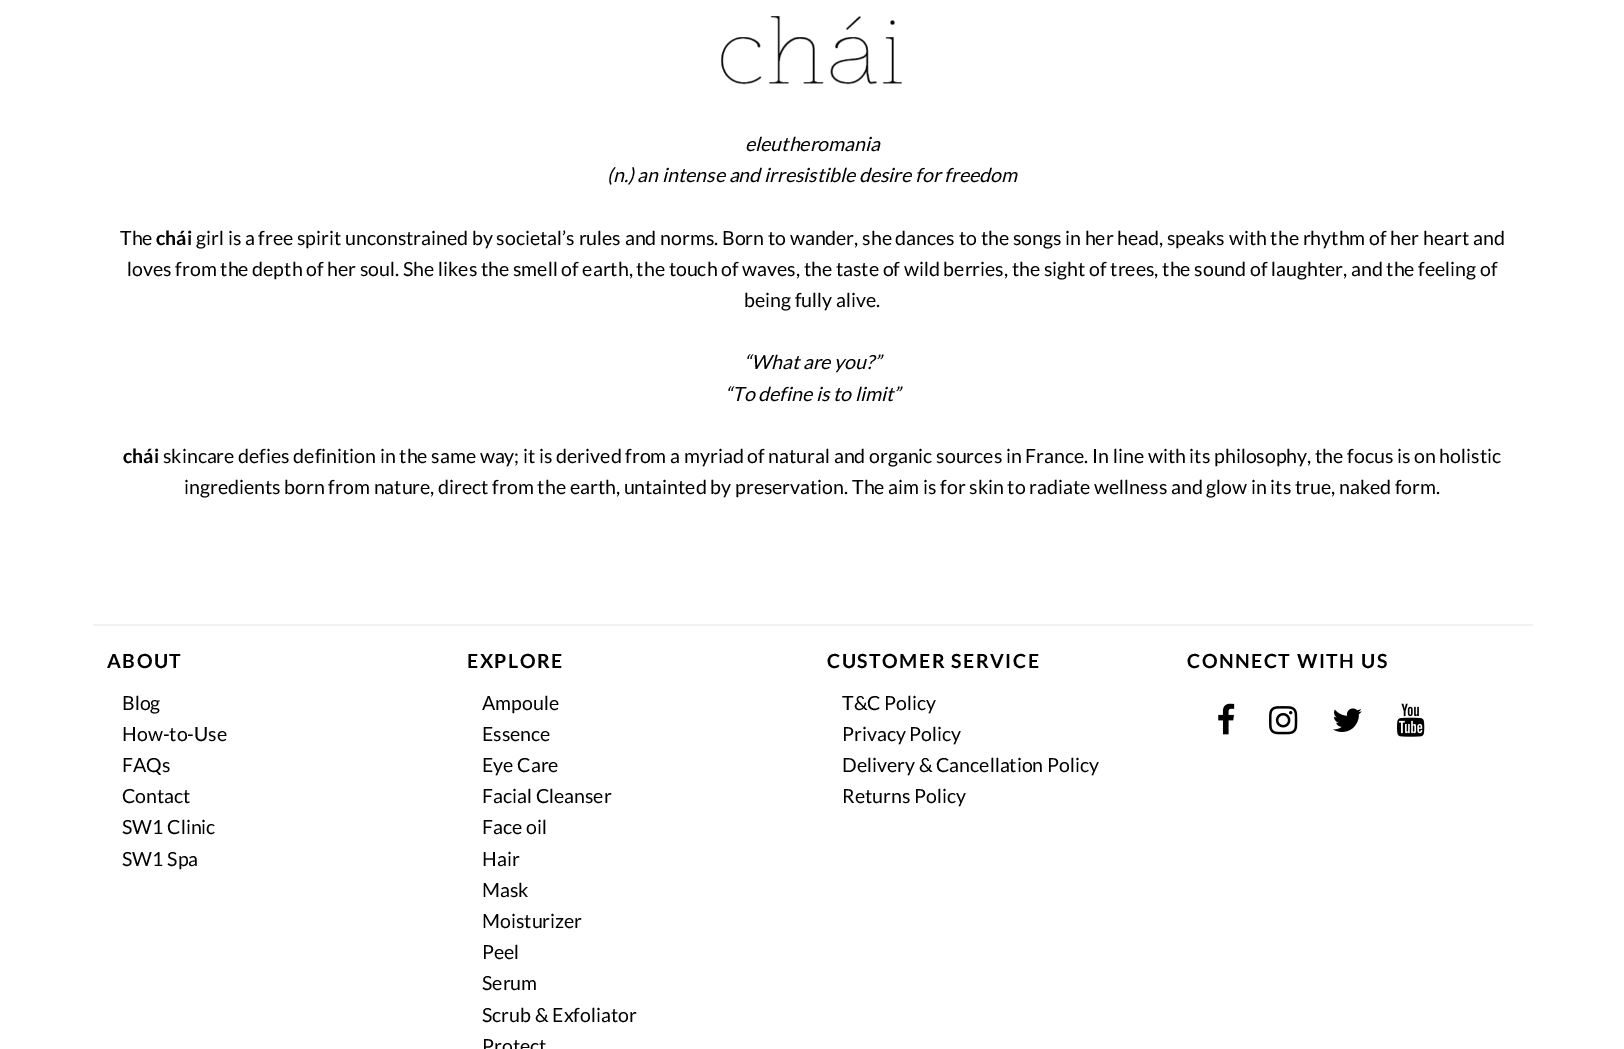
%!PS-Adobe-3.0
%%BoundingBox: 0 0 1624 1049
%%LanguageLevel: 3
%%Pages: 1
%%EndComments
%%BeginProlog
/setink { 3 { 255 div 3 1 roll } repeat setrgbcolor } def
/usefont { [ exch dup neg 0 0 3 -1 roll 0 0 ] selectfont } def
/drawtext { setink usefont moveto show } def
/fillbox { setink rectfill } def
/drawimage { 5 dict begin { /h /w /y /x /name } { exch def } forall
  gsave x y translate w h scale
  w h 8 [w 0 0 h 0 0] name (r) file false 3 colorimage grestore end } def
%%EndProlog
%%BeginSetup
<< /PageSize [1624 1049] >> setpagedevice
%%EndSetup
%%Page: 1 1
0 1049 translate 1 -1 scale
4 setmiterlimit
0 0 1624 1049 255 255 255 fillbox
(assets/img1.rgb) 721 16 181 69 drawimage
(eleutheromania) 745 151 /Lato-Italic 19.5 0 0 0 drawtext
(\(n.\) an intense and irresistible desire for freedom) 607 182 /Lato-Italic 19.5 0 0 0 drawtext
(The) 120 245 /Lato-Regular 19.5 0 0 0 drawtext
(chái) 156 245 /Lato-Bold 19.5 0 0 0 drawtext
(girl is a free spirit unconstrained by societal’s rules and norms. Born to wander, she dances to the songs in her head, speaks with the rhythm of her heart and) 196 245 /Lato-Regular 19.5 0 0 0 drawtext
(loves from the depth of her soul. She likes the smell of earth, the touch of waves, the taste of wild berries, the sight of trees, the sound of laughter, and the feeling of) 127 276 /Lato-Regular 19.5 0 0 0 drawtext
(being fully alive.) 744 307 /Lato-Regular 19.5 0 0 0 drawtext
(“What are you?”) 744 369 /Lato-Italic 19.5 0 0 0 drawtext
(“To define is to limit”) 725 401 /Lato-Italic 19.5 0 0 0 drawtext
(chái) 123 463 /Lato-Bold 19.5 0 0 0 drawtext
(skincare defies definition in the same way; it is derived from a myriad of natural and organic sources in France. In line with its philosophy, the focus is on holistic) 163 463 /Lato-Regular 19.5 0 0 0 drawtext
(ingredients born from nature, direct from the earth, untainted by preservation. The aim is for skin to radiate wellness and glow in its true, naked form.) 184 494 /Lato-Regular 19.5 0 0 0 drawtext
93 624 1440 2 242 242 242 fillbox
/Lato-Bold 19.5 usefont
0 0 0 setink
107 668 moveto 1.5 0 (ABOUT) ashow
(Blog) 122 710 /Lato-Regular 19.5 0 0 0 drawtext
(How-to-Use) 122 741 /Lato-Regular 19.5 0 0 0 drawtext
(FAQs) 122 772 /Lato-Regular 19.5 0 0 0 drawtext
(Contact) 122 803 /Lato-Regular 19.5 0 0 0 drawtext
(SW1 Clinic) 122 834 /Lato-Regular 19.5 0 0 0 drawtext
(SW1 Spa) 122 866 /Lato-Regular 19.5 0 0 0 drawtext
/Lato-Bold 19.5 usefont
467 668 moveto 1.5 0 (EXPLORE) ashow
(Ampoule) 482 710 /Lato-Regular 19.5 0 0 0 drawtext
(Essence) 482 741 /Lato-Regular 19.5 0 0 0 drawtext
(Eye Care) 482 772 /Lato-Regular 19.5 0 0 0 drawtext
(Facial Cleanser) 482 803 /Lato-Regular 19.5 0 0 0 drawtext
(Face oil) 482 834 /Lato-Regular 19.5 0 0 0 drawtext
(Hair) 482 866 /Lato-Regular 19.5 0 0 0 drawtext
(Mask) 482 897 /Lato-Regular 19.5 0 0 0 drawtext
(Moisturizer) 482 928 /Lato-Regular 19.5 0 0 0 drawtext
(Peel) 482 959 /Lato-Regular 19.5 0 0 0 drawtext
(Serum) 482 990 /Lato-Regular 19.5 0 0 0 drawtext
(Scrub & Exfoliator) 482 1022 /Lato-Regular 19.5 0 0 0 drawtext
(Protect) 482 1053 /Lato-Regular 19.5 0 0 0 drawtext
/Lato-Bold 19.5 usefont
827 668 moveto 1.5 0 (CUSTOMER SERVICE) ashow
(T&C Policy) 842 710 /Lato-Regular 19.5 0 0 0 drawtext
(Privacy Policy) 842 741 /Lato-Regular 19.5 0 0 0 drawtext
(Delivery & Cancellation Policy) 842 772 /Lato-Regular 19.5 0 0 0 drawtext
(Returns Policy) 842 803 /Lato-Regular 19.5 0 0 0 drawtext
/Lato-Bold 19.5 usefont
1187 668 moveto 1.5 0 (CONNECT WITH US) ashow
(assets/img2.rgb) 1218 703 17 32 drawimage
(assets/img3.rgb) 1269 706 29 29 drawimage
(assets/img4.rgb) 1333 708 29 24 drawimage
(assets/img5.rgb) 1397 703 28 34 drawimage
showpage
%%EOF
